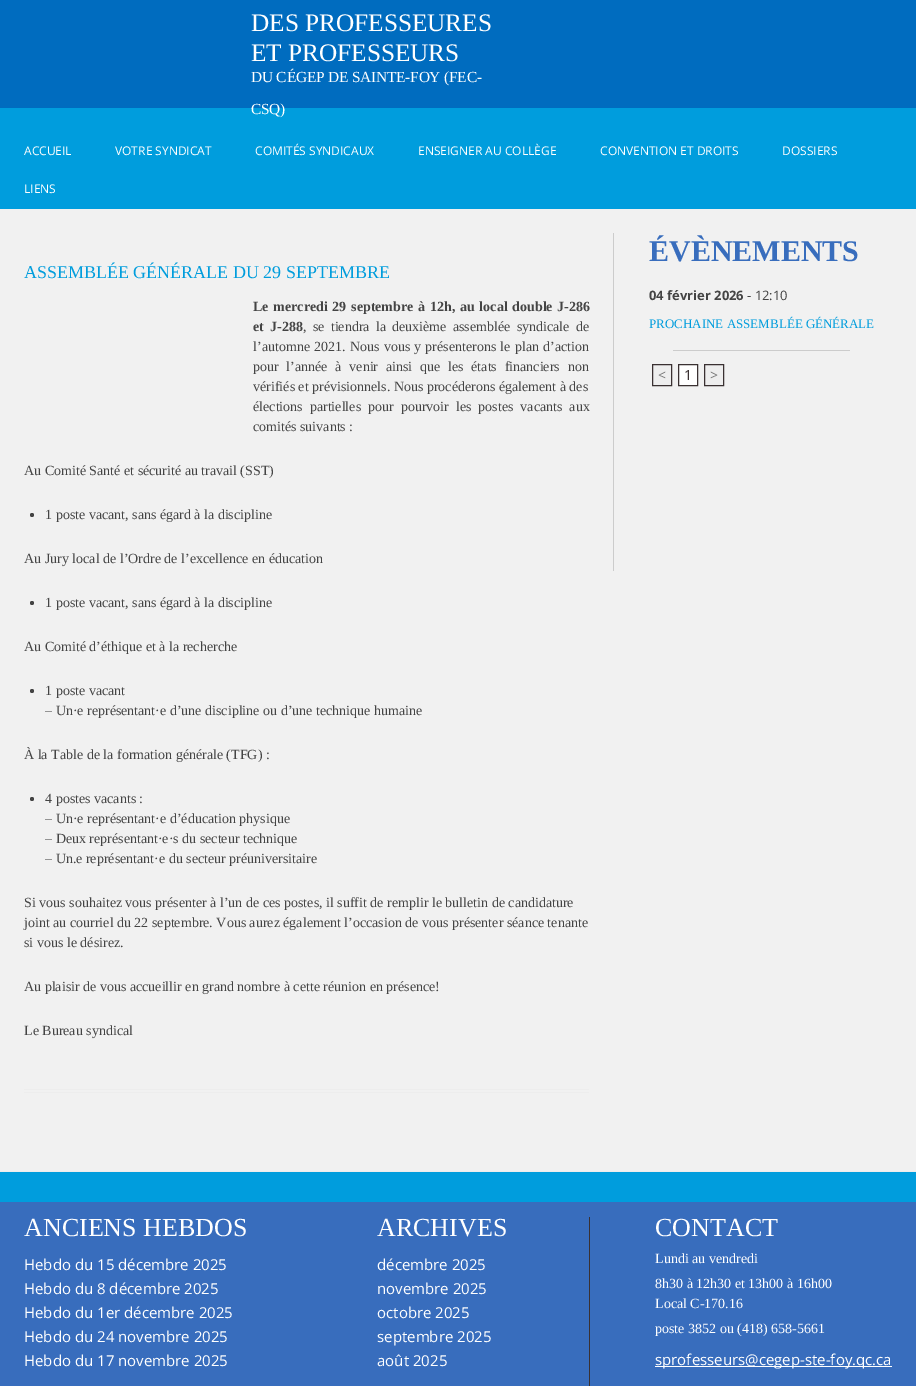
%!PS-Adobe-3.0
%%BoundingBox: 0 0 916 1386
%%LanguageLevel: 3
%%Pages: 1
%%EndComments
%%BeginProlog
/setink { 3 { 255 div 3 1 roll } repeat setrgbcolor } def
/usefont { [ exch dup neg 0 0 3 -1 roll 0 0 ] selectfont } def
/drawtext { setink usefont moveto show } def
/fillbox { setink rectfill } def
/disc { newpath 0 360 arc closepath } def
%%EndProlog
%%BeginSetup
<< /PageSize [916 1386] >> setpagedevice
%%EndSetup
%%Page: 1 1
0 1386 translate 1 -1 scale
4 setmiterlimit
0 0 916 1386 0 108 191 fillbox
(DES PROFESSEURES) 251 31 /LiberationSerif-Regular 25.25 255 255 255 drawtext
(ET PROFESSEURS) 251 61 /LiberationSerif-Regular 25.25 255 255 255 drawtext
/LiberationSerif-Regular 15.4 usefont
251 82 moveto -0.2 0 (DU CÉGEP DE SAINTE-FOY \(FEC-) ashow
0 108 916 101 0 157 221 fillbox
255 255 255 setink
251 114 moveto -0.2 0 (CSQ\)) ashow
(ACCUEIL) 24 155 /OpenSans-Regular 12 255 255 255 drawtext
(VOTRE SYNDICAT) 115 155 /OpenSans-Regular 12 255 255 255 drawtext
(COMITÉS SYNDICAUX) 255 155 /OpenSans-Regular 12 255 255 255 drawtext
(ENSEIGNER AU COLLÈGE) 418 155 /OpenSans-Regular 12 255 255 255 drawtext
(CONVENTION ET DROITS) 600 155 /OpenSans-Regular 12 255 255 255 drawtext
(DOSSIERS) 782 155 /OpenSans-Regular 12 255 255 255 drawtext
(LIENS) 24 193 /OpenSans-Regular 12 255 255 255 drawtext
0 209 916 962 241 241 241 fillbox
24 1089 565 1 237 237 237 fillbox
24 1092 565 1 237 237 237 fillbox
(ASSEMBLÉE GÉNÉRALE DU 29 SEPTEMBRE) 24 278 /LiberationSerif-Regular 18 0 157 221 drawtext
/LiberationSerif-Bold 14 usefont
68 68 68 setink
253 311 moveto 1.25 0 32 (Le mercredi 29 septembre à 12h, au local double J-286) widthshow
253 331 moveto 2.75 0 32 (et J-288) widthshow
/LiberationSerif-Regular 14 usefont
303 331 moveto 2.75 0 32 (, se tiendra la deuxième assemblée syndicale de) widthshow
253 351 moveto 0.75 0 32 (l’automne 2021. Nous vous y présenterons le plan d’action) widthshow
253 371 moveto 4.25 0 32 (pour l’année à venir ainsi que les états financiers non) widthshow
(vérifiés et prévisionnels. Nous procéderons également à des) 253 391 /LiberationSerif-Regular 14 68 68 68 drawtext
253 411 moveto 3.5 0 32 (élections partielles pour pourvoir les postes vacants aux) widthshow
(comités suivants :) 253 431 /LiberationSerif-Regular 14 68 68 68 drawtext
(Au Comité Santé et sécurité au travail \(SST\)) 24 475 /LiberationSerif-Regular 14 68 68 68 drawtext
32 515 2 disc fill
(1 poste vacant, sans égard à la discipline) 45 519 /LiberationSerif-Regular 14 68 68 68 drawtext
(Au Jury local de l’Ordre de l’excellence en éducation) 24 563 /LiberationSerif-Regular 14 68 68 68 drawtext
32 603 2 disc fill
(1 poste vacant, sans égard à la discipline) 45 607 /LiberationSerif-Regular 14 68 68 68 drawtext
(Au Comité d’éthique et à la recherche) 24 651 /LiberationSerif-Regular 14 68 68 68 drawtext
32 691 2 disc fill
(1 poste vacant) 45 695 /LiberationSerif-Regular 14 68 68 68 drawtext
(– Un·e représentant·e d’une discipline ou d’une technique humaine) 45 715 /LiberationSerif-Regular 14 68 68 68 drawtext
(À la Table de la formation générale \(TFG\) :) 24 759 /LiberationSerif-Regular 14 68 68 68 drawtext
32 799 2 disc fill
(4 postes vacants :) 45 803 /LiberationSerif-Regular 14 68 68 68 drawtext
(– Un·e représentant·e d’éducation physique) 45 823 /LiberationSerif-Regular 14 68 68 68 drawtext
(– Deux représentant·e·s du secteur technique) 45 843 /LiberationSerif-Regular 14 68 68 68 drawtext
(– Un.e représentant·e du secteur préuniversitaire) 45 863 /LiberationSerif-Regular 14 68 68 68 drawtext
(Si vous souhaitez vous présenter à l’un de ces postes, il suffit de remplir le bulletin de candidature) 24 907 /LiberationSerif-Regular 14 68 68 68 drawtext
(joint au courriel du 22 septembre. Vous aurez également l’occasion de vous présenter séance tenante) 24 927 /LiberationSerif-Regular 14 68 68 68 drawtext
(si vous le désirez.) 24 947 /LiberationSerif-Regular 14 68 68 68 drawtext
(Au plaisir de vous accueillir en grand nombre à cette réunion en présence!) 24 991 /LiberationSerif-Regular 14 68 68 68 drawtext
(Le Bureau syndical) 24 1035 /LiberationSerif-Regular 14 68 68 68 drawtext
613 233 1 338 204 204 204 fillbox
(ÉVÈNEMENTS) 649 261 /LiberationSerif-Bold 30 56 109 189 drawtext
(04 février 2026) 649 300 /OpenSans-Bold 13 68 68 68 drawtext
(- 12:10) 747 300 /OpenSans-Regular 13 68 68 68 drawtext
(PROCHAINE ASSEMBLÉE GÉNÉRALE) 649 328 /LiberationSerif-Regular 13 0 157 221 drawtext
673 350 177 1 204 204 204 fillbox
238 238 238 setink
652.5 364.5 moveto 671.5 364.5 lineto 671.5 385.5 lineto 652.5 385.5 lineto closepath gsave fill grestore
58 49 50 setink
stroke
(<) 658 380 /OpenSans-Regular 14 119 119 119 drawtext
255 255 255 setink
678.5 364.5 moveto 697.5 364.5 lineto 697.5 385.5 lineto 678.5 385.5 lineto closepath gsave fill grestore
58 49 50 setink
stroke
(1) 684 380 /OpenSans-Regular 14 58 49 50 drawtext
238 238 238 setink
704.5 364.5 moveto 723.5 364.5 lineto 723.5 385.5 lineto 704.5 385.5 lineto closepath gsave fill grestore
58 49 50 setink
stroke
(>) 710 380 /OpenSans-Regular 14 119 119 119 drawtext
0 1171 916 1 237 237 237 fillbox
0 1172 916 30 0 157 221 fillbox
0 1202 916 184 56 109 189 fillbox
(ANCIENS HEBDOS) 24 1236 /LiberationSerif-Regular 26 255 255 255 drawtext
(Hebdo du 15 décembre 2025) 24 1270 /OpenSans-Regular 15 255 255 255 drawtext
(Hebdo du 8 décembre 2025) 24 1294 /OpenSans-Regular 15 255 255 255 drawtext
(Hebdo du 1er décembre 2025) 24 1318 /OpenSans-Regular 15 255 255 255 drawtext
(Hebdo du 24 novembre 2025) 24 1342 /OpenSans-Regular 15 255 255 255 drawtext
(Hebdo du 17 novembre 2025) 24 1366 /OpenSans-Regular 15 255 255 255 drawtext
(ARCHIVES) 377 1236 /LiberationSerif-Regular 26 255 255 255 drawtext
(décembre 2025) 377 1270 /OpenSans-Regular 15 255 255 255 drawtext
(novembre 2025) 377 1294 /OpenSans-Regular 15 255 255 255 drawtext
(octobre 2025) 377 1318 /OpenSans-Regular 15 255 255 255 drawtext
(septembre 2025) 377 1342 /OpenSans-Regular 15 255 255 255 drawtext
(août 2025) 377 1366 /OpenSans-Regular 15 255 255 255 drawtext
589 1217 1 169 58 49 50 fillbox
(CONTACT) 655 1236 /LiberationSerif-Regular 26 255 255 255 drawtext
(Lundi au vendredi) 655 1263 /LiberationSerif-Regular 14 255 255 255 drawtext
(8h30 à 12h30 et 13h00 à 16h00) 655 1288 /LiberationSerif-Regular 14 255 255 255 drawtext
(Local C-170.16) 655 1308 /LiberationSerif-Regular 14 255 255 255 drawtext
(poste 3852 ou \(418\) 658-5661) 655 1333 /LiberationSerif-Regular 14 255 255 255 drawtext
655 1366 237 1 255 255 255 fillbox
(sprofesseurs@cegep-ste-foy.qc.ca) 655 1365 /OpenSans-Regular 15 255 255 255 drawtext
showpage
%%EOF
